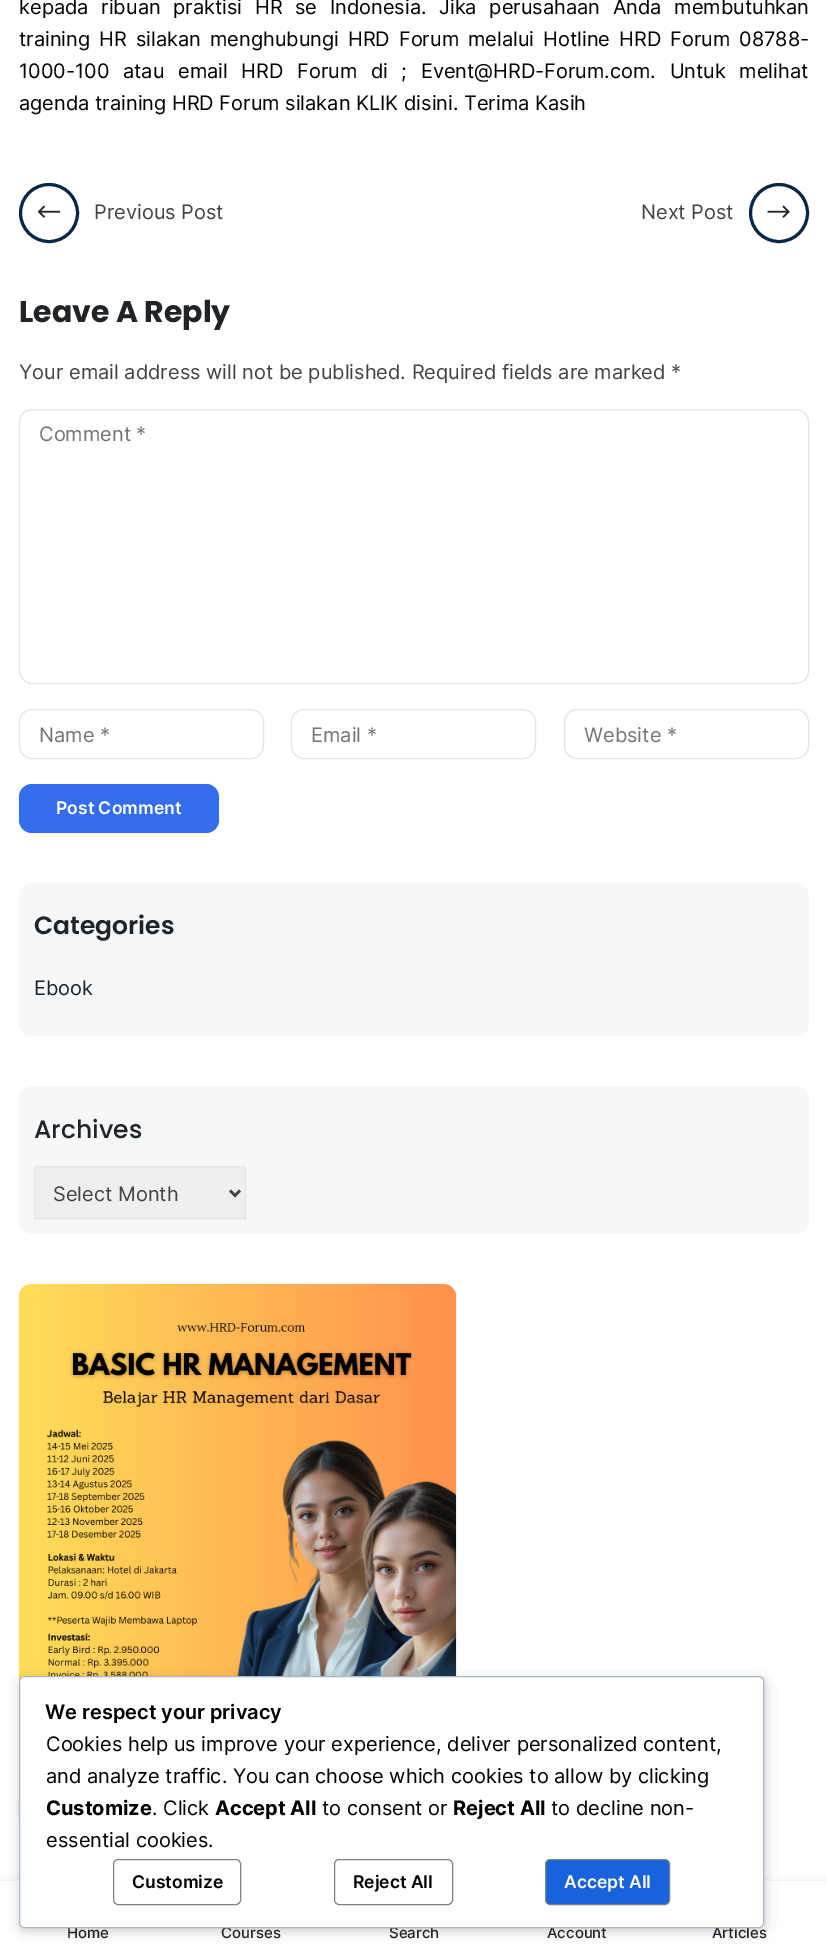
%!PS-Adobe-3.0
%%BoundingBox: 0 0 827 1952
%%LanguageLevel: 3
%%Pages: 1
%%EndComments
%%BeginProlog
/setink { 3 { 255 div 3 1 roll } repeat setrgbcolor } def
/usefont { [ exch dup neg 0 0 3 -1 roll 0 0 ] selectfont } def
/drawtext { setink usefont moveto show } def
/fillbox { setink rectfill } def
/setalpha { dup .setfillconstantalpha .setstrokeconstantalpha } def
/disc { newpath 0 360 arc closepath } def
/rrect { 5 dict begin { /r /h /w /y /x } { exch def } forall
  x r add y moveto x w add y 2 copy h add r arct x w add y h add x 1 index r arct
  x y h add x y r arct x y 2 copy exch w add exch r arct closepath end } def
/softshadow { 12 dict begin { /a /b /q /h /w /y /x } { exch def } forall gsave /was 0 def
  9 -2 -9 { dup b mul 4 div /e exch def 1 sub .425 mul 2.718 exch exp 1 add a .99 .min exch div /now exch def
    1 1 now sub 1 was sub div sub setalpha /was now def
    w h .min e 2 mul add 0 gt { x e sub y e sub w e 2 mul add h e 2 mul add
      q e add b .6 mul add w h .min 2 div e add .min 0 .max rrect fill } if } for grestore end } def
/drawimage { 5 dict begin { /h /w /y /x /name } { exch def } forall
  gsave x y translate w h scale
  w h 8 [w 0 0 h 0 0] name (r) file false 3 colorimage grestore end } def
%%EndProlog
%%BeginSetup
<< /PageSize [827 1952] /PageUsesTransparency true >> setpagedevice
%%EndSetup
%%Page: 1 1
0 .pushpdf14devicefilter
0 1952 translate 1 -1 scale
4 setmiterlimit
0 0 827 1952 255 255 255 fillbox
/Inter-Regular 20 usefont
0 0 0 setink
19 14 moveto 7 0 32 (kepada ribuan praktisi HR se Indonesia. Jika perusahaan Anda membutuhkan) widthshow
19 46 moveto 3.4 0 32 (training HR silakan menghubungi HRD Forum melalui Hotline HRD Forum 08788-) widthshow
19 78 moveto 8 0 32 (1000-100 atau email HRD Forum di ; Event@HRD-Forum.com. Untuk melihat) widthshow
(agenda training HRD Forum silakan KLIK disini. Terima Kasih) 19 110 /Inter-Regular 20 0 0 0 drawtext
8 38 69 setink
3 setlinewidth
49 213 28.5 disc stroke
(assets/img1.rgb) 37 205 23 13 drawimage
(Previous Post) 94 219 /Inter-Regular 20 68 68 68 drawtext
(Next Post) 641 219 /Inter-Regular 20 68 68 68 drawtext
8 38 69 setink
779 213 28.5 disc stroke
(assets/img2.rgb) 767 205 23 13 drawimage
(Leave A Reply) 19 322 /Poppins-Bold 30 33 36 39 drawtext
(Your email address will not be published. Required fields are marked *) 19 379 /Inter-Regular 20 68 68 68 drawtext
228 228 228 setink
1 setlinewidth
19.5 409.5 789 274 12.5 rrect stroke
(Comment *) 39 441 /Inter-Regular 20 117 117 117 drawtext
228 228 228 setink
19.5 709.5 244 49 12.5 rrect stroke
(Name *) 39 742 /Inter-Regular 20 117 117 117 drawtext
228 228 228 setink
291.5 709.5 244 49 12.5 rrect stroke
(Email *) 311 742 /Inter-Regular 20 117 117 117 drawtext
228 228 228 setink
564.5 709.5 244 49 12.5 rrect stroke
(Website *) 584 742 /Inter-Regular 20 117 117 117 drawtext
53 109 241 setink
19 784 200 49 13 rrect fill
(Post Comment) 56 814 /Inter-SemiBold 17.5 255 255 255 drawtext
245 247 248 setink
32 883 moveto 796 883 lineto 803 883 809 889 809 896 curveto 809 968 lineto 19 968 lineto 19 896 lineto 19 889 25 883 32 883 curveto closepath fill
(Categories) 34 934 /Poppins-SemiBold 25 33 36 39 drawtext
245 247 248 setink
19 968 moveto 809 968 lineto 809 1023 lineto 809 1030 803 1036 796 1036 curveto 32 1036 lineto 25 1036 19 1030 19 1023 curveto closepath fill
(Ebook) 34 995 /Inter-Regular 20 33 36 39 drawtext
245 247 248 setink
19 1086 790 148 13 rrect fill
(Archives) 34 1138 /Poppins-Medium 25 33 36 39 drawtext
239 239 239 setink
34.5 1166.5 moveto 245.5 1166.5 lineto 245.5 1218.5 lineto 34.5 1218.5 lineto closepath gsave fill grestore
228 228 228 setink
stroke
68 68 68 setink
2.5 setlinewidth
230 1190.5 moveto 235 1195.5 lineto 240 1190.5 lineto stroke
(Select Month) 53 1201 /Inter-Regular 20 68 68 68 drawtext
(assets/img3.rgb) 18 1284 439 537 drawimage
220 220 220 setink
0 1881 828 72 0 4 0.6 softshadow
0 1881 827 71 255 255 255 fillbox
0 0 0 setink
20 1680 745 251 5 6 0.2 softshadow
(Home) 67 1938 /Inter-Medium 15 33 36 39 drawtext
(Courses) 221 1938 /Inter-Medium 15 33 36 39 drawtext
(Search) 389 1938 /Inter-Medium 15 33 36 39 drawtext
(Account) 547 1938 /Inter-Medium 15 33 36 39 drawtext
(Articles) 712 1938 /Inter-Medium 15 33 36 39 drawtext
255 255 255 setink
19.5 1676.5 744 251 4.5 rrect gsave fill grestore
171 184 195 setink
1 setlinewidth
stroke
(We respect your privacy) 45 1719 /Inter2-SemiBold 20 0 0 0 drawtext
(Cookies help us improve your experience, deliver personalized content,) 46 1751 /Inter-Regular 20 0 0 0 drawtext
(and analyze traffic. You can choose which cookies to allow by clicking) 46 1783 /Inter-Regular 20 0 0 0 drawtext
(Customize) 46 1815 /Inter-Bold 20 0 0 0 drawtext
(. Click) 152 1815 /Inter-Regular 20 0 0 0 drawtext
(Accept All) 215 1815 /Inter-Bold 20 0 0 0 drawtext
(to consent or) 322 1815 /Inter-Regular 20 0 0 0 drawtext
(Reject All) 453 1815 /Inter-Bold 20 0 0 0 drawtext
(to decline non-) 551 1815 /Inter-Regular 20 0 0 0 drawtext
(essential cookies.) 46 1847 /Inter-Regular 20 0 0 0 drawtext
128 128 128 setink
113.5 1859.5 127 45 4.5 rrect stroke
(Customize) 132 1888 /Inter-SemiBold 17.5 0 0 0 drawtext
128 128 128 setink
334.5 1859.5 118 45 4.5 rrect stroke
(Reject All) 353 1888 /Inter-SemiBold 17.5 0 0 0 drawtext
24 99 220 setink
545.5 1859.5 124 45 4.5 rrect gsave fill grestore
128 128 128 setink
stroke
(Accept All) 564 1888 /Inter-SemiBold 17.5 255 255 255 drawtext
.poppdf14devicefilter showpage
%%EOF
